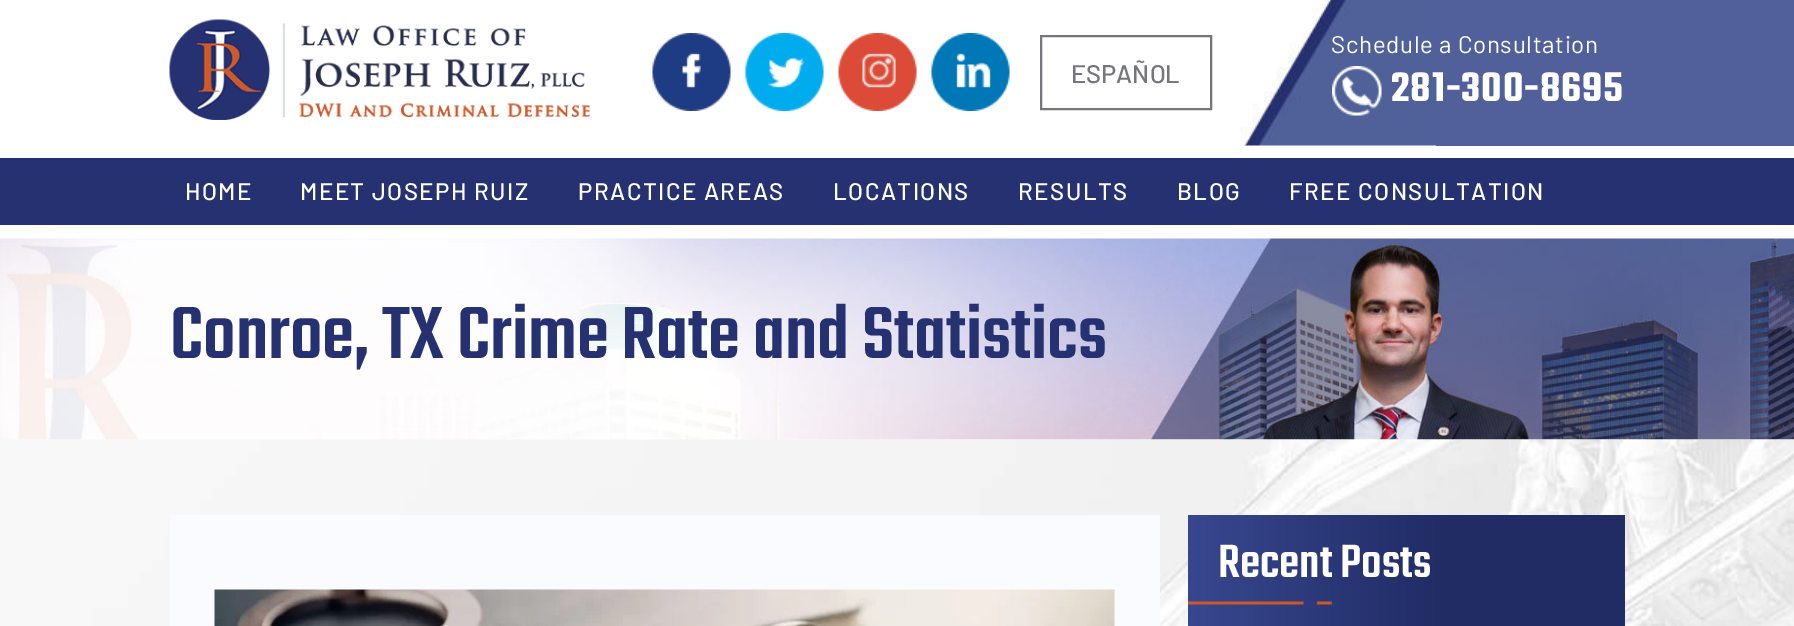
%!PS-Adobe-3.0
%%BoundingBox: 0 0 1794 626
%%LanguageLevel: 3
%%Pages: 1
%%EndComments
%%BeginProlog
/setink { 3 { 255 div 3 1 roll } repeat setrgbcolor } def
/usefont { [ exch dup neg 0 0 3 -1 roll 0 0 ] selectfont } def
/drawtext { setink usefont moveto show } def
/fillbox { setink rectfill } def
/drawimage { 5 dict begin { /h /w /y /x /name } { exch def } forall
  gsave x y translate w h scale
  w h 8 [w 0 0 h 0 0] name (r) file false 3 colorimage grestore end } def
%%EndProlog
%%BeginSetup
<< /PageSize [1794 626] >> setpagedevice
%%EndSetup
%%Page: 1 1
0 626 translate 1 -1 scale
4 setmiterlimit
0 0 1794 626 255 255 255 fillbox
1436 0 358 146 81 96 155 fillbox
(assets/img1.rgb) 169 19 421 101 drawimage
(assets/img2.rgb) 652 33 79 78 drawimage
(assets/img3.rgb) 745 33 79 78 drawimage
(assets/img4.rgb) 838 33 79 78 drawimage
(assets/img5.rgb) 931 33 79 78 drawimage
117 118 124 setink
2 setlinewidth
1041 36 170 73 rectstroke
(ESPAÑOL) 1071 83 /Barlow-Medium 25.5 117 118 124 drawtext
(assets/img6.rgb) 1240 0 196 146 drawimage
/Barlow-Regular 24 usefont
255 255 255 setink
1331 53 moveto 0.75 0 (Schedule a Consultation) ashow
(assets/img7.rgb) 1332 66 50 50 drawimage
/Teko-SemiBold 45 usefont
1391 101 moveto 0.75 0 (281-300-8695) ashow
0 158 1794 67 37 49 112 fillbox
/Barlow-Medium 24 usefont
255 255 255 setink
185 200 moveto 1.5 0 (HOME) ashow
300 200 moveto 1.5 0 (MEET JOSEPH RUIZ) ashow
578 200 moveto 1.5 0 (PRACTICE AREAS) ashow
833 200 moveto 1.5 0 (LOCATIONS) ashow
1018 200 moveto 1.5 0 (RESULTS) ashow
1177 200 moveto 1.5 0 (BLOG) ashow
1289 200 moveto 1.5 0 (FREE CONSULTATION) ashow
(assets/img8.rgb) 0 238 1794 202 drawimage
(Conroe, TX Crime Rate and Statistics) 170 358 /Teko-Medium 81 37 49 112 drawtext
(assets/img9.rgb) 0 439 1794 187 drawimage
170 515 990 111 249 251 255 fillbox
(assets/img10.rgb) 214 589 901 37 drawimage
gsave 1188 515 moveto 1625 515 lineto 1625 626 lineto 1188 626 lineto closepath clip newpath
<< /ShadingType 2 /ColorSpace /DeviceRGB /Coords [1188 571 1625 571] /Extend [true true] /Function << /FunctionType 3 /Domain [0 1] /Functions [<< /FunctionType 2 /Domain [0 1] /C0 [0.22 0.278 0.561] /C1 [0.129 0.173 0.396] /N 1 >> << /FunctionType 2 /Domain [0 1] /C0 [0.129 0.173 0.396] /C1 [0.129 0.173 0.396] /N 1 >>] /Bounds [0.58] /Encode [0 1 0 1] >> >> shfill grestore
(Recent Posts) 1218 577 /Teko-Medium 51 255 255 255 drawtext
(assets/img11.rgb) 1188 601 144 4 drawimage
showpage
%%EOF
